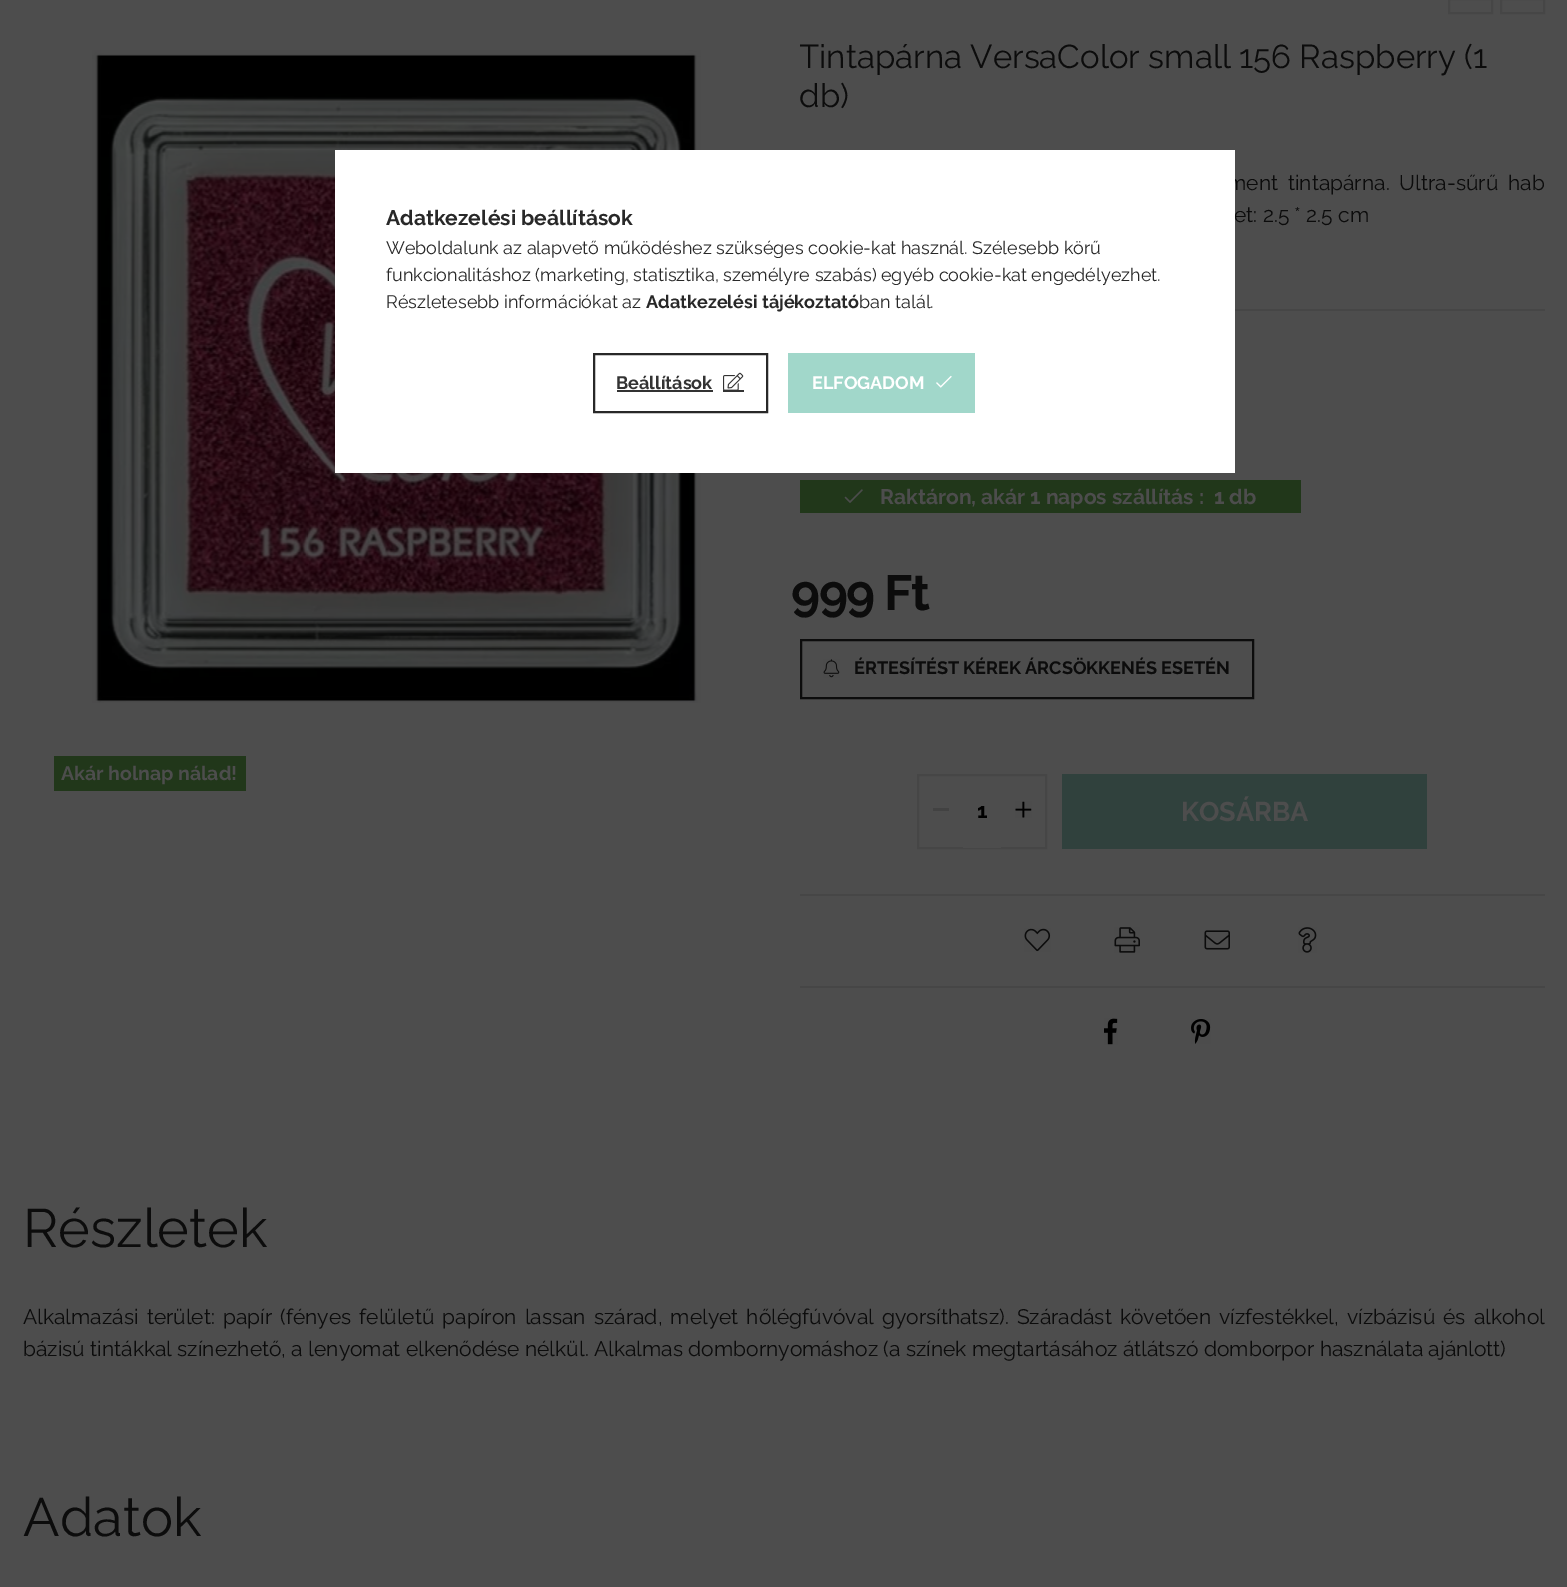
%!PS-Adobe-3.0
%%BoundingBox: 0 0 1567 1587
%%LanguageLevel: 3
%%Pages: 1
%%EndComments
%%BeginProlog
/setink { 3 { 255 div 3 1 roll } repeat setrgbcolor } def
/usefont { [ exch dup neg 0 0 3 -1 roll 0 0 ] selectfont } def
/drawtext { setink usefont moveto show } def
/fillbox { setink rectfill } def
/drawimage { 5 dict begin { /h /w /y /x /name } { exch def } forall
  gsave x y translate w h scale
  w h 8 [w 0 0 h 0 0] name (r) file false 3 colorimage grestore end } def
%%EndProlog
%%BeginSetup
<< /PageSize [1567 1587] >> setpagedevice
%%EndSetup
%%Page: 1 1
0 1587 translate 1 -1 scale
4 setmiterlimit
0 0 1567 1587 77 77 77 fillbox
70 70 70 setink
2 setlinewidth
1449 -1 43 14 rectstroke
1501 -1 43 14 rectstroke
(assets/img1.rgb) 92 50 609 653 drawimage
54 756 192 35 33 55 26 fillbox
(Akár holnap nálad!) 61 780 /Raleway-Bold 19.5 77 77 77 drawtext
gsave
800 36 745 80 rectclip
(Tintapárna VersaColor small 156 Raspberry \(1) 799 68 /Raleway-Regular 33 12 12 12 drawtext
grestore
(db\)) 799 107 /Raleway-Regular 33 12 12 12 drawtext
/Raleway-Regular 21 usefont
1227 190 moveto 4.5 0 32 (ment tintapárna. Ultra-sűrű hab) widthshow
(et: 2.5 * 2.5 cm) 1234 222 /Raleway-Regular 21 12 12 12 drawtext
1235 309 310 2 70 70 70 fillbox
800 480 501 33 33 55 26 fillbox
(assets/img2.rgb) 844 489 19 14 drawimage
(Raktáron, akár 1 napos szállítás :) 880 504 /Raleway-Bold 21 77 77 77 drawtext
(1 db) 1214 504 /Raleway-Bold 21 77 77 77 drawtext
/Raleway-Bold 49.5 usefont
12 12 12 setink
791 610 moveto -1.5 0 (999 Ft) ashow
801 640 452 58 rectstroke
(assets/img3.rgb) 823 659 17 19 drawimage
(ÉRTESÍTÉST KÉREK ÁRCSÖKKENÉS ESETÉN) 854 674 /Raleway-Bold 18 12 12 12 drawtext
70 70 70 setink
918 775 128 73 rectstroke
933 808 16 3 66 66 66 fillbox
963 847 38 1 77 77 77 fillbox
(1) 977 818 /Raleway-Bold 21 0 0 0 drawtext
(assets/img4.rgb) 1015 801 17 17 drawimage
1062 774 365 75 48 65 61 fillbox
(KOSÁRBA) 1181 821 /Raleway-Bold 27 77 77 77 drawtext
800 894 745 2 70 70 70 fillbox
(assets/img5.rgb) 1024 928 27 24 drawimage
(assets/img6.rgb) 1114 927 26 26 drawimage
(assets/img7.rgb) 1204 930 26 20 drawimage
(assets/img8.rgb) 1298 927 19 26 drawimage
800 986 745 2 70 70 70 fillbox
(assets/img9.rgb) 1104 1018 14 27 drawimage
(assets/img10.rgb) 1191 1019 20 25 drawimage
(Részletek) 23 1247 /Raleway-Regular 54 12 12 12 drawtext
/Raleway-Regular 21 usefont
23 1324 moveto 2.75 0 32 (Alkalmazási terület: papír \(fényes felületű papíron lassan szárad, melyet hőlégfúvóval gyorsíthatsz\). Száradást követően vízfestékkel, vízbázisú és alkohol) widthshow
(bázisú tintákkal színezhető, a lenyomat elkenődése nélkül. Alkalmas dombornyomáshoz \(a színek megtartásához átlátszó domborpor használata ajánlott\)) 23 1356 /Raleway-Regular 21 12 12 12 drawtext
(Adatok) 23 1536 /Raleway-Regular 54 12 12 12 drawtext
335 150 900 323 255 255 255 fillbox
(Adatkezelési beállítások) 386 225 /Raleway-Bold 21 40 40 40 drawtext
(Weboldalunk az alapvető működéshez szükséges cookie-kat használ. Szélesebb körű) 386 254 /Raleway-Regular 18 40 40 40 drawtext
(funkcionalitáshoz \(marketing, statisztika, személyre szabás\) egyéb cookie-kat engedélyezhet.) 386 281 /Raleway-Regular 18 40 40 40 drawtext
(Részletesebb információkat az) 386 308 /Raleway-Regular 18 40 40 40 drawtext
(Adatkezelési tájékoztató) 646 308 /Raleway-Bold 18 40 40 40 drawtext
(ban talál.) 859 308 /Raleway-Regular 18 40 40 40 drawtext
594 354 173 58 rectstroke
(Beállítások) 616 389 /Raleway-Bold 18 51 51 51 drawtext
617 390 96 2 51 51 51 fillbox
(assets/img11.rgb) 723 372 21 18 drawimage
723 390 21 2 51 51 51 fillbox
788 353 187 60 161 215 202 fillbox
(ELFOGADOM) 812 389 /Raleway-Bold 18 255 255 255 drawtext
(assets/img12.rgb) 936 375 16 13 drawimage
showpage
%%EOF
